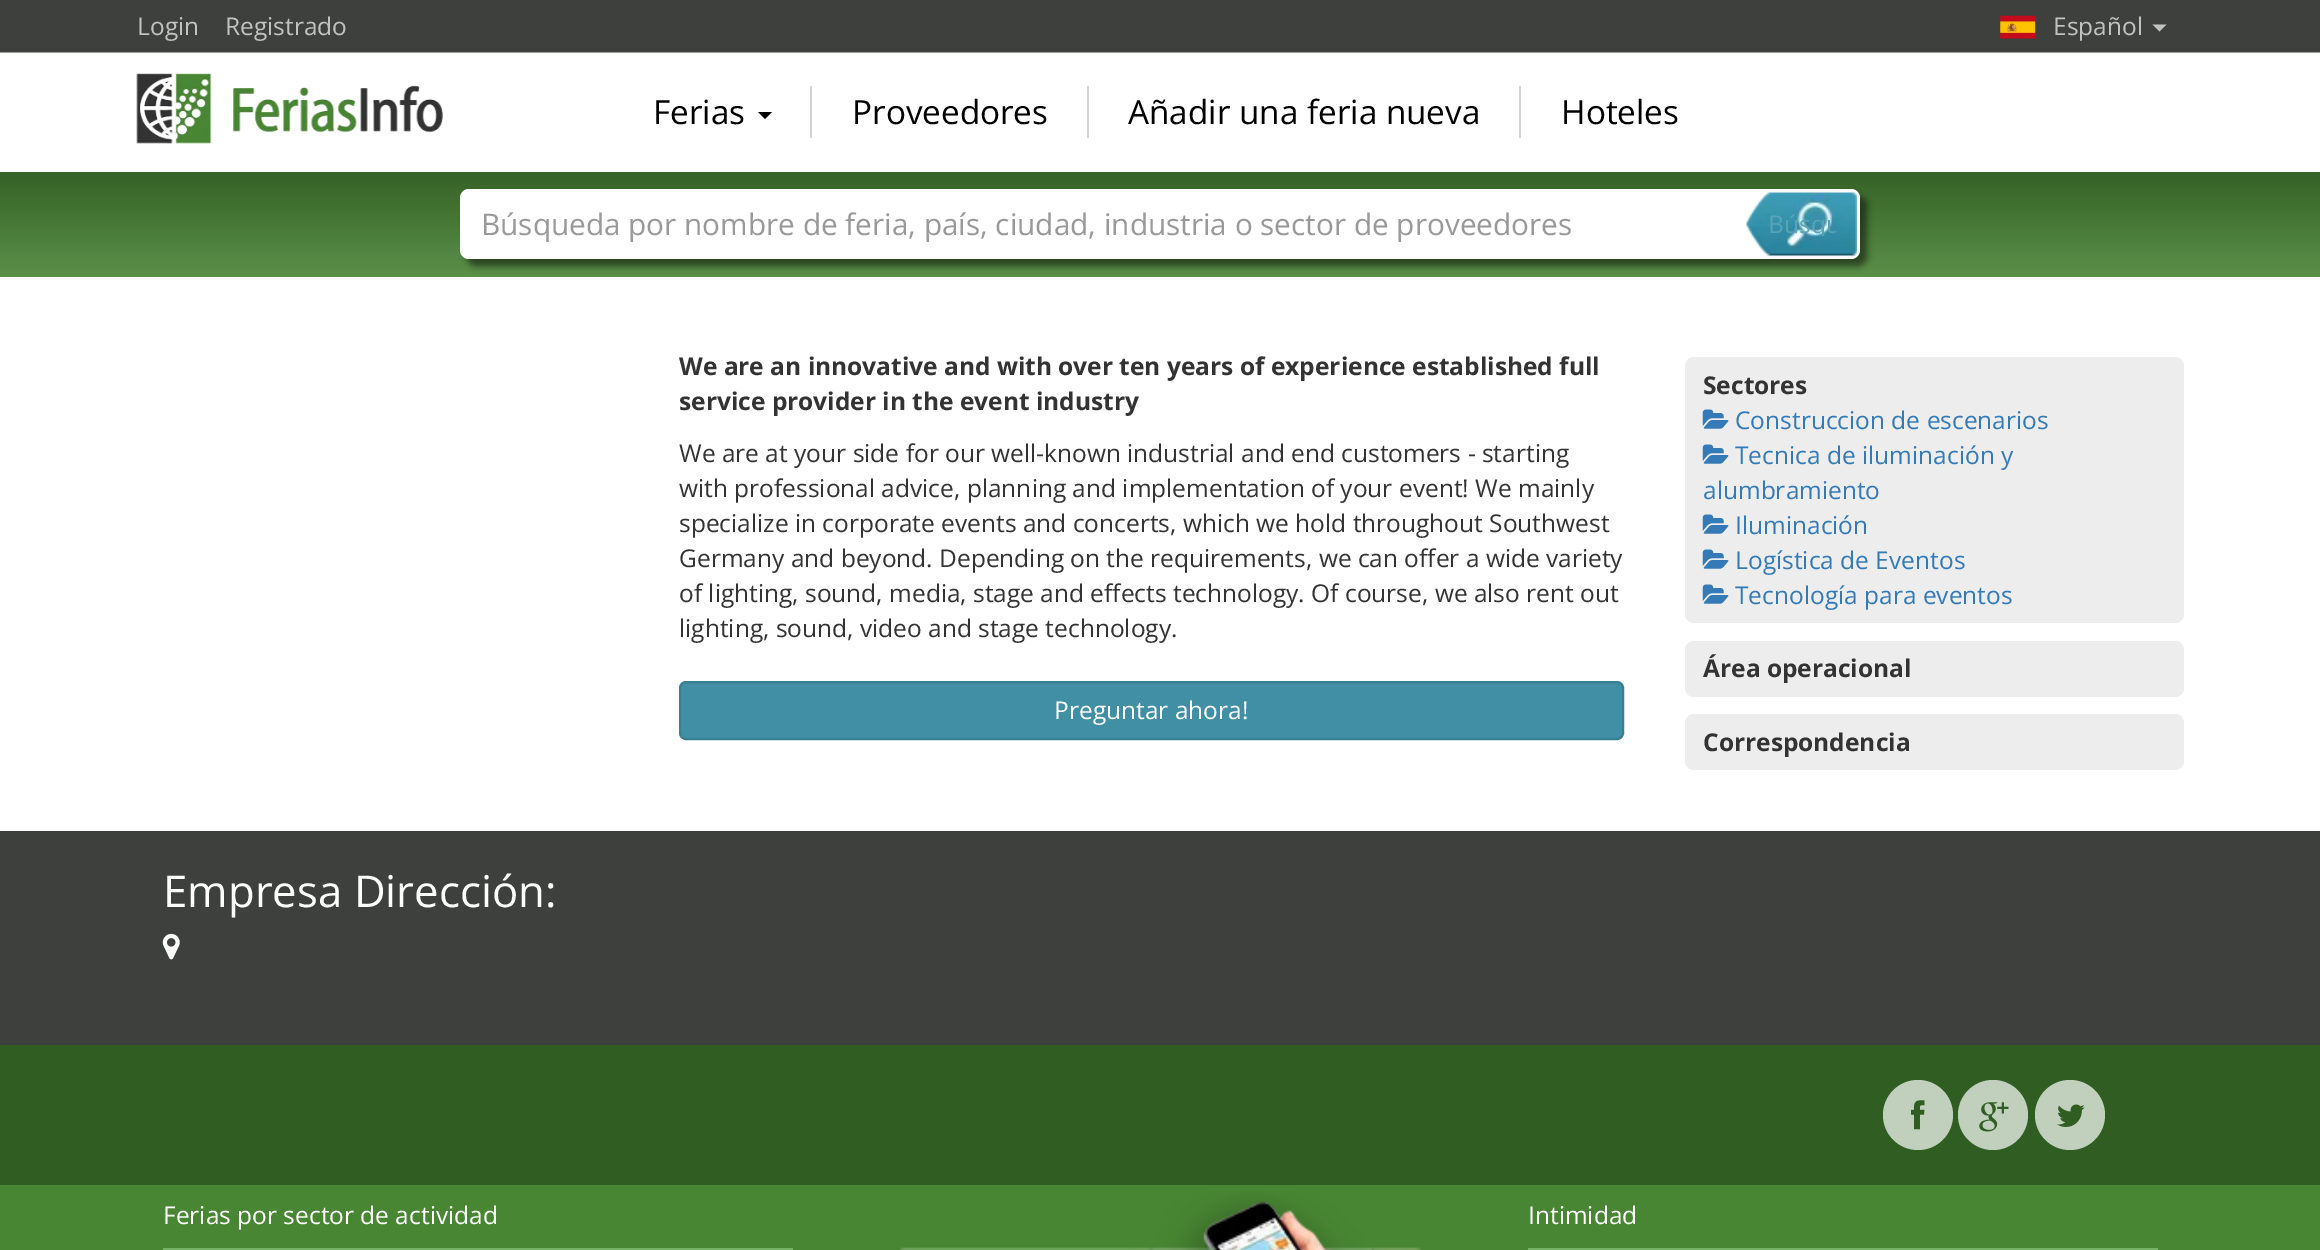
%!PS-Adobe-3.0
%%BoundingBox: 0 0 2320 1250
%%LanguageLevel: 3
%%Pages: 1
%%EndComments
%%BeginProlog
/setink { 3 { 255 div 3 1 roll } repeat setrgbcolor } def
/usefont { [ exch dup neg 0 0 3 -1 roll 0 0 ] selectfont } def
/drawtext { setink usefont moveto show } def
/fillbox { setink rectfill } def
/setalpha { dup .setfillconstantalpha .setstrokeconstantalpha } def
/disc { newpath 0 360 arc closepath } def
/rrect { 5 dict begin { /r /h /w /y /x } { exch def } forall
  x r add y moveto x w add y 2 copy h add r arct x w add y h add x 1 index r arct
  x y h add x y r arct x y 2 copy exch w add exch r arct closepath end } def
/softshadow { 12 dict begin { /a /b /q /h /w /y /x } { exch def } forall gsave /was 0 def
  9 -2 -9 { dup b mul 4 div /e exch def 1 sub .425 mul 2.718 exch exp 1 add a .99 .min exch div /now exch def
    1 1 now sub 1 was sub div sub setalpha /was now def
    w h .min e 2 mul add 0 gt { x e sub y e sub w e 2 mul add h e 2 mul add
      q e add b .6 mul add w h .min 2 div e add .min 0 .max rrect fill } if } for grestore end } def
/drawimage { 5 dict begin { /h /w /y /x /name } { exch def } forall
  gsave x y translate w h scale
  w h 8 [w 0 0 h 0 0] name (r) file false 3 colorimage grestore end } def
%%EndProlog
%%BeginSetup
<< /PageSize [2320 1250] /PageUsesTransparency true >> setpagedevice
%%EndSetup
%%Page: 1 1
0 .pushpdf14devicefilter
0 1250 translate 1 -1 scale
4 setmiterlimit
0 0 2320 1250 255 255 255 fillbox
(assets/img3.rgb) 136 73 307 71 drawimage
(assets/img1.rgb) 0 0 2320 74 drawimage
(Login) 137 35 /OpenSans-Regular 24.5 193 194 193 drawtext
(Registrado) 225 35 /OpenSans-Regular 24.5 193 194 193 drawtext
(assets/img2.rgb) 2000 15 36 24 drawimage
(Español) 2053 35 /OpenSans-Regular 24.5 193 194 193 drawtext
2152.5 24.5 moveto 2166.5 24.5 lineto 2159.5 31.5 lineto closepath fill
(Ferias) 653 124 /OpenSans-Regular 33.25 0 0 0 drawtext
758 112 moveto 772 112 lineto 765 119 lineto closepath fill
810 86 2 52 211 211 211 fillbox
(Proveedores) 852 124 /OpenSans-Regular 33.25 0 0 0 drawtext
1087 86 2 52 211 211 211 fillbox
(Añadir una feria nueva) 1128 124 /OpenSans-Regular 33.25 0 0 0 drawtext
1519 86 2 52 211 211 211 fillbox
(Hoteles) 1561 124 /OpenSans-Regular 33.25 0 0 0 drawtext
gsave 0 172 moveto 2320 172 lineto 2320 277 lineto 0 277 lineto closepath clip newpath
<< /ShadingType 2 /ColorSpace /DeviceRGB /Coords [1160 171 1160 277] /Extend [true true] /Function << /FunctionType 2 /Domain [0 1] /C0 [0.208 0.384 0.149] /C1 [0.357 0.565 0.286] /N 1 >> >> shfill grestore
467 196 1400 70 9 3.5 0.5 softshadow
255 255 255 setink
460 189 1400 70 9 rrect fill
(Búsqueda por nombre de feria, país, ciudad, industria o sector de proveedores) 481 235 /OpenSans-Regular 29.75 153 153 153 drawtext
(assets/img4.rgb) 1746 192 111 65 drawimage
gsave
1768 212 68 24 rectclip
(Búsqu) 1768 233 /OpenSans-Regular 24.5 88 163 184 drawtext
grestore
(We are an innovative and with over ten years of experience established full) 679 375 /OpenSans-Bold 24.5 51 51 51 drawtext
(service provider in the event industry) 679 410 /OpenSans-Bold 24.5 51 51 51 drawtext
(We are at your side for our well-known industrial and end customers - starting) 679 462 /OpenSans-Regular 24.5 51 51 51 drawtext
(with professional advice, planning and implementation of your event! We mainly) 679 497 /OpenSans-Regular 24.5 51 51 51 drawtext
(specialize in corporate events and concerts, which we hold throughout Southwest) 679 532 /OpenSans-Regular 24.5 51 51 51 drawtext
(Germany and beyond. Depending on the requirements, we can offer a wide variety) 679 567 /OpenSans-Regular 24.5 51 51 51 drawtext
(of lighting, sound, media, stage and effects technology. Of course, we also rent out) 679 602 /OpenSans-Regular 24.5 51 51 51 drawtext
(lighting, sound, video and stage technology.) 679 637 /OpenSans-Regular 24.5 51 51 51 drawtext
64 143 165 setink
680 682 943 57 6 rrect gsave fill grestore
57 127 147 setink
2 setlinewidth
stroke
(Preguntar ahora!) 1054 719 /OpenSans-Regular 24.5 255 255 255 drawtext
237 237 237 setink
1685 357 499 266 9 rrect fill
(Sectores) 1703 394 /OpenSans-Bold 24.5 51 51 51 drawtext
(assets/img5.rgb) 1702 409 27 20 drawimage
(Construccion de escenarios) 1735 429 /OpenSans-Regular 24.5 51 122 183 drawtext
(assets/img5.rgb) 1702 444 27 20 drawimage
(Tecnica de iluminación y) 1735 464 /OpenSans-Regular 24.5 51 122 183 drawtext
(alumbramiento) 1703 499 /OpenSans-Regular 24.5 51 122 183 drawtext
(assets/img5.rgb) 1702 514 27 20 drawimage
(Iluminación) 1735 534 /OpenSans-Regular 24.5 51 122 183 drawtext
(assets/img5.rgb) 1702 549 27 20 drawimage
(Logística de Eventos) 1735 569 /OpenSans-Regular 24.5 51 122 183 drawtext
(assets/img5.rgb) 1702 584 27 20 drawimage
(Tecnología para eventos) 1735 604 /OpenSans-Regular 24.5 51 122 183 drawtext
237 237 237 setink
1685 641 499 56 9 rrect fill
(Área operacional) 1703 677 /OpenSans-Bold 24.5 51 51 51 drawtext
237 237 237 setink
1685 714 499 56 9 rrect fill
(Correspondencia) 1703 751 /OpenSans-Bold 24.5 51 51 51 drawtext
0 831 2320 214 62 64 61 fillbox
(Empresa Dirección:) 163 907 /OpenSans-Regular 43.75 255 255 255 drawtext
(assets/img6.rgb) 162 933 18 27 drawimage
0 1045 2320 140 48 94 34 fillbox
193 207 189 setink
1918 1115 35 disc fill
(assets/img7.rgb) 1911 1100 14 30 drawimage
1993 1115 35 disc fill
(assets/img8.rgb) 1979 1102 30 30 drawimage
2070 1115 35 disc fill
(assets/img9.rgb) 2057 1104 28 23 drawimage
0 1185 2320 65 72 134 51 fillbox
163 1248 630 2 117 178 101 fillbox
(Ferias por sector de actividad) 163 1224 /OpenSans-Regular 24.5 255 255 255 drawtext
(assets/img10.rgb) 899 1191 523 59 drawimage
1528 1248 630 2 117 178 101 fillbox
(Intimidad) 1528 1224 /OpenSans-Regular 24.5 255 255 255 drawtext
.poppdf14devicefilter showpage
%%EOF
